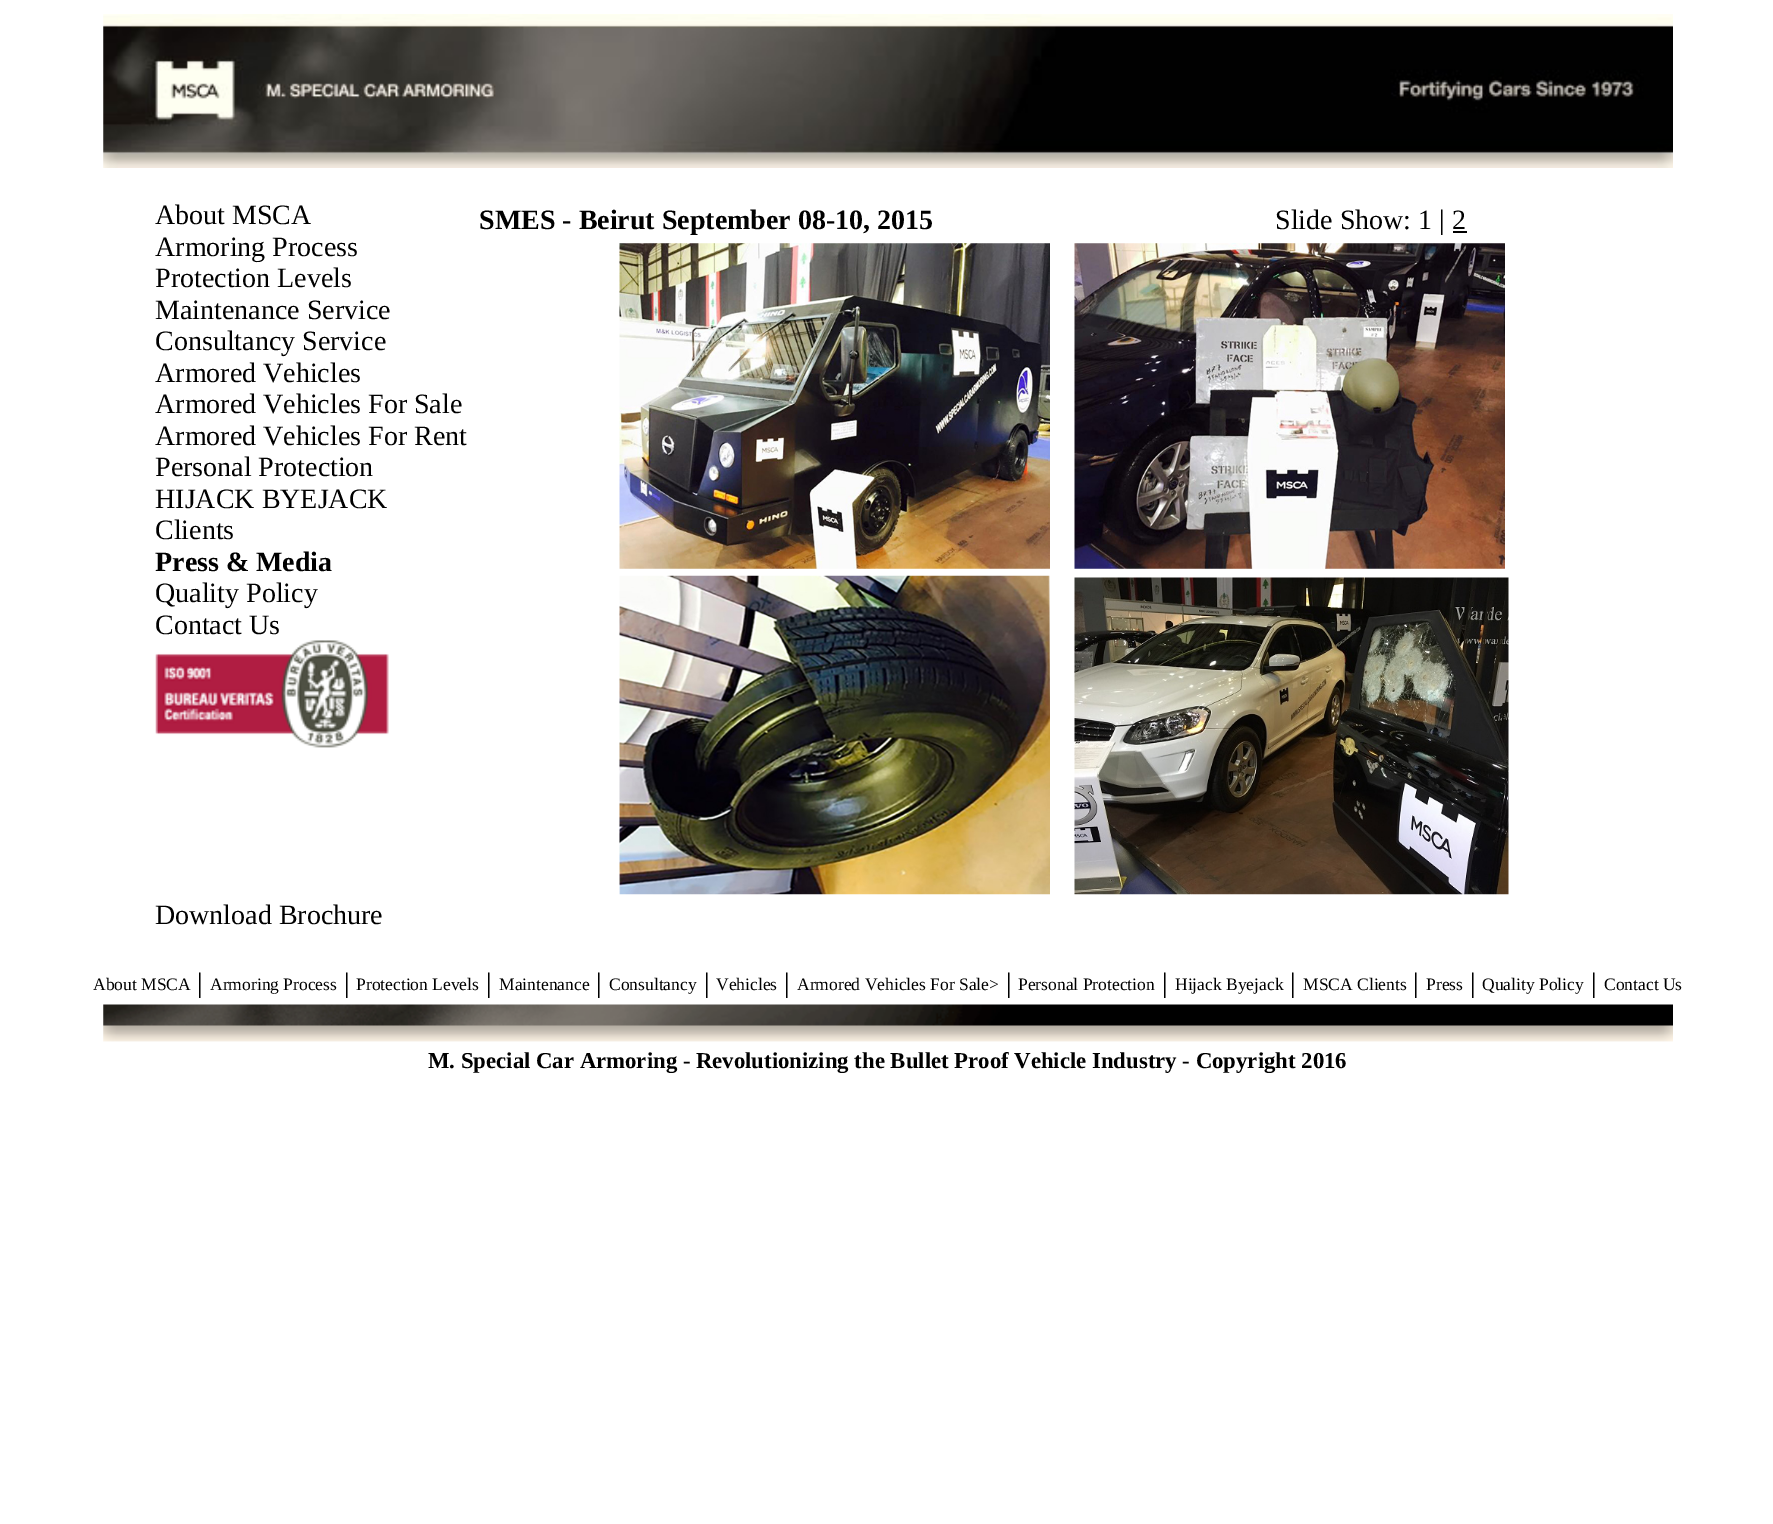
%!PS-Adobe-3.0
%%BoundingBox: 0 0 1773 1524
%%LanguageLevel: 3
%%Pages: 1
%%EndComments
%%BeginProlog
/setink { 3 { 255 div 3 1 roll } repeat setrgbcolor } def
/usefont { [ exch dup neg 0 0 3 -1 roll 0 0 ] selectfont } def
/drawtext { setink usefont moveto show } def
/fillbox { setink rectfill } def
/drawimage { 5 dict begin { /h /w /y /x /name } { exch def } forall
  gsave x y translate w h scale
  w h 8 [w 0 0 h 0 0] name (r) file false 3 colorimage grestore end } def
%%EndProlog
%%BeginSetup
<< /PageSize [1773 1524] >> setpagedevice
%%EndSetup
%%Page: 1 1
0 1524 translate 1 -1 scale
4 setmiterlimit
0 0 1773 1524 255 255 255 fillbox
(assets/img1.rgb) 103 14 1570 154 drawimage
(About MSCA) 155 224 /LiberationSerif-Regular 28 0 0 0 drawtext
(Armoring Process) 155 256 /LiberationSerif-Regular 28 0 0 0 drawtext
(Protection Levels) 155 287 /LiberationSerif-Regular 28 0 0 0 drawtext
(Maintenance Service) 155 319 /LiberationSerif-Regular 28 0 0 0 drawtext
(Consultancy Service) 155 350 /LiberationSerif-Regular 28 0 0 0 drawtext
(Armored Vehicles) 155 382 /LiberationSerif-Regular 28 0 0 0 drawtext
(Armored Vehicles For Sale) 155 413 /LiberationSerif-Regular 28 0 0 0 drawtext
(Armored Vehicles For Rent) 155 445 /LiberationSerif-Regular 28 0 0 0 drawtext
(Personal Protection) 155 476 /LiberationSerif-Regular 28 0 0 0 drawtext
(HIJACK BYEJACK) 155 508 /LiberationSerif-Regular 28 0 0 0 drawtext
(Clients) 155 539 /LiberationSerif-Regular 28 0 0 0 drawtext
(Press & Media) 155 571 /LiberationSerif-Bold 28 0 0 0 drawtext
(Quality Policy) 155 602 /LiberationSerif-Regular 28 0 0 0 drawtext
(Contact Us) 155 634 /LiberationSerif-Regular 28 0 0 0 drawtext
(assets/img2.rgb) 155 640 234 108 drawimage
(SMES - Beirut September 08-10, 2015) 479 229 /LiberationSerif-Bold 28 0 0 0 drawtext
(Slide Show: 1 | 2) 1275 229 /LiberationSerif-Regular 28 0 0 0 drawtext
1453 231 14 2 0 0 0 fillbox
(assets/img3.rgb) 619 243 431 326 drawimage
(assets/img4.rgb) 1074 243 431 326 drawimage
(assets/img5.rgb) 619 575 431 320 drawimage
(assets/img6.rgb) 1074 577 435 318 drawimage
(Download Brochure) 155 924 /LiberationSerif-Regular 28 0 0 0 drawtext
(About MSCA) 93 990 /LiberationSerif-Regular 17.5 0 0 0 drawtext
(|) 197 992 /LiberationSerif-Regular 28 0 0 0 drawtext
(Armoring Process) 210 990 /LiberationSerif-Regular 17.5 0 0 0 drawtext
(|) 344 992 /LiberationSerif-Regular 28 0 0 0 drawtext
(Protection Levels) 356 990 /LiberationSerif-Regular 17.5 0 0 0 drawtext
(|) 486 992 /LiberationSerif-Regular 28 0 0 0 drawtext
(Maintenance) 499 990 /LiberationSerif-Regular 17.5 0 0 0 drawtext
(|) 596 992 /LiberationSerif-Regular 28 0 0 0 drawtext
(Consultancy) 609 990 /LiberationSerif-Regular 17.5 0 0 0 drawtext
(|) 704 992 /LiberationSerif-Regular 28 0 0 0 drawtext
(Vehicles) 716 990 /LiberationSerif-Regular 17.5 0 0 0 drawtext
(|) 784 992 /LiberationSerif-Regular 28 0 0 0 drawtext
(Armored Vehicles For Sale>) 797 990 /LiberationSerif-Regular 17.5 0 0 0 drawtext
(|) 1006 992 /LiberationSerif-Regular 28 0 0 0 drawtext
(Personal Protection) 1018 990 /LiberationSerif-Regular 17.5 0 0 0 drawtext
(|) 1162 992 /LiberationSerif-Regular 28 0 0 0 drawtext
(Hijack Byejack) 1175 990 /LiberationSerif-Regular 17.5 0 0 0 drawtext
(|) 1290 992 /LiberationSerif-Regular 28 0 0 0 drawtext
(MSCA Clients) 1303 990 /LiberationSerif-Regular 17.5 0 0 0 drawtext
(|) 1413 992 /LiberationSerif-Regular 28 0 0 0 drawtext
(Press) 1426 990 /LiberationSerif-Regular 17.5 0 0 0 drawtext
(|) 1470 992 /LiberationSerif-Regular 28 0 0 0 drawtext
(Quality Policy) 1482 990 /LiberationSerif-Regular 17.5 0 0 0 drawtext
(|) 1591 992 /LiberationSerif-Regular 28 0 0 0 drawtext
(Contact Us) 1604 990 /LiberationSerif-Regular 17.5 0 0 0 drawtext
(assets/img7.rgb) 103 1004 1570 38 drawimage
(M. Special Car Armoring - Revolutionizing the Bullet Proof Vehicle Industry - Copyright 2016) 428 1068 /LiberationSerif-Bold 22.75 0 0 0 drawtext
showpage
%%EOF
